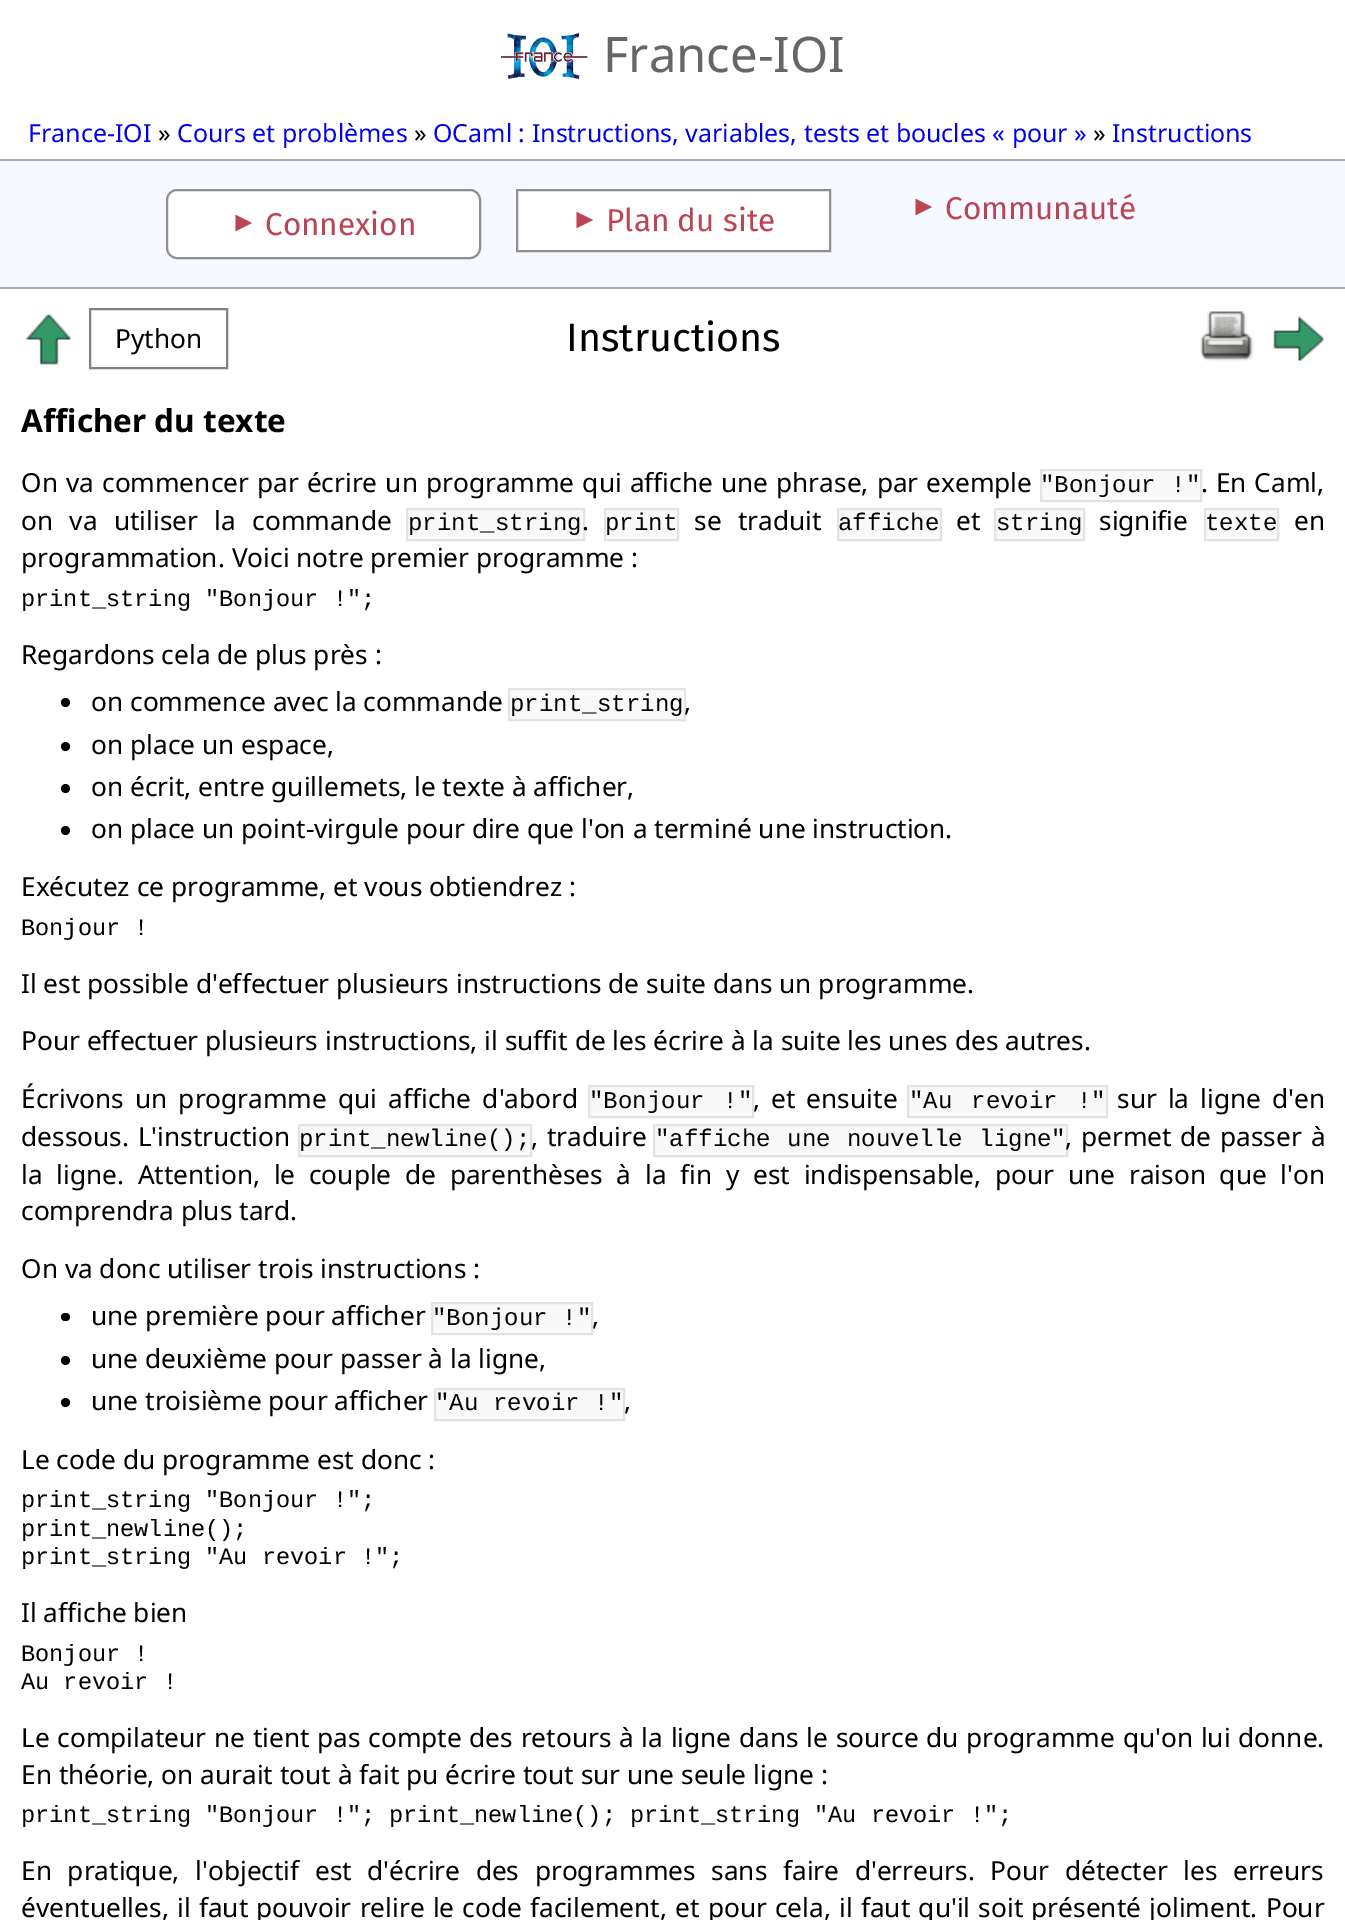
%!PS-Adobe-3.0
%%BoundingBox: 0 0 1345 1920
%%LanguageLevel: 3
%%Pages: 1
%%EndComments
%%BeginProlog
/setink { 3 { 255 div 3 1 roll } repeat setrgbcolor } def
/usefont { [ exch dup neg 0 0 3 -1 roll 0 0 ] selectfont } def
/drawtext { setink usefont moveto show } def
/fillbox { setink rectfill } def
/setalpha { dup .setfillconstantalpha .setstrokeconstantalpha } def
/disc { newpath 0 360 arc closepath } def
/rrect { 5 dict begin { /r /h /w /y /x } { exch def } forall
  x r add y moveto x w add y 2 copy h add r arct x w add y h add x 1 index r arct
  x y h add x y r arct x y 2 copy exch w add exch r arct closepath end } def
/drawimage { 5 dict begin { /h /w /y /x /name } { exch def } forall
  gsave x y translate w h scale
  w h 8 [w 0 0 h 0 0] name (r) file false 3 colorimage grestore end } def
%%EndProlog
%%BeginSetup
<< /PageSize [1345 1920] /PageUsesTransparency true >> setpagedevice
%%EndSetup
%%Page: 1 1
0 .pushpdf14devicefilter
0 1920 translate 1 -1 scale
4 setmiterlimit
0 0 1345 1920 255 255 255 fillbox
(assets/img1.rgb) 501 33 87 47 drawimage
(France-IOI) 603 72 /NotoSans-Regular 49 102 102 102 drawtext
0 159 1345 2 170 170 170 fillbox
(France-IOI) 28 142 /NotoSans-Regular 24.95 0 0 238 drawtext
(») 158 142 /NotoSans-Regular 24.95 0 0 0 drawtext
(Cours et problèmes) 177 142 /NotoSans-Regular 24.95 0 0 238 drawtext
(») 414 142 /NotoSans-Regular 24.95 0 0 0 drawtext
(OCaml : Instructions, variables, tests et boucles « pour ») 433 142 /NotoSans-Regular 24.95 0 0 238 drawtext
(») 1093 142 /NotoSans-Regular 24.95 0 0 0 drawtext
(Instructions) 1112 142 /NotoSans-Regular 24.95 0 0 238 drawtext
0 161 1345 126 246 249 255 fillbox
254 254 254 setink
167 190 313 68 10 rrect gsave fill grestore
144 144 144 setink
2 setlinewidth
stroke
(►) 230 231 /LiberationSans-Regular 28 187 68 85 drawtext
(Connexion) 265 235 /FiraSans-Regular 31.5 187 68 85 drawtext
254 254 254 setink
517 190 moveto 830 190 lineto 830 251 lineto 517 251 lineto closepath gsave fill grestore
144 144 144 setink
stroke
(►) 571 228 /LiberationSans-Regular 28 187 68 85 drawtext
(Plan du site) 606 231 /FiraSans-Regular 31.5 187 68 85 drawtext
(►) 910 215 /LiberationSans-Regular 28 187 68 85 drawtext
(Communauté) 945 219 /FiraSans-Regular 31.5 187 68 85 drawtext
0 287 1345 2 170 170 170 fillbox
(assets/img2.rgb) 25 314 46 51 drawimage
128 128 128 setink
90 309 137 59 rectstroke
(Python) 115 348 /NotoSans-Regular 26.25 0 0 0 drawtext
(Instructions) 566 351 /FiraSans-Regular 39.5 0 0 0 drawtext
(assets/img3.rgb) 1200 311 54 51 drawimage
(assets/img4.rgb) 1273 316 51 45 drawimage
(Afficher du texte) 21 432 /NotoSans-Bold 31.5 0 0 0 drawtext
/NotoSans-Regular 26.25 usefont
21 492 moveto 1.25 0 32 (On va commencer par écrire un programme qui affiche une phrase, par exemple) widthshow
1041 471 160 30 249 249 249 fillbox
/LiberationMono-Regular 24.1 usefont
0 0 0 setink
1040 492 moveto 1 0 32 ("Bonjour !") widthshow
0.9 setalpha
224 224 224 setink
1041 470 160 31 rectstroke
/NotoSans-Regular 26.25 usefont
1 setalpha
0 0 0 setink
1201 492 moveto 1 0 32 (. En Caml,) widthshow
21 530 moveto 9.5 0 32 (on va utiliser la commande) widthshow
408 509 175 30 249 249 249 fillbox
(print_string) 408 530 /LiberationMono-Regular 24.1 0 0 0 drawtext
0.9 setalpha
224 224 224 setink
407 509 177 31 rectstroke
1 setalpha
(.) 582 530 /NotoSans-Regular 26.25 0 0 0 drawtext
606 509 71 30 249 249 249 fillbox
(print) 605 530 /LiberationMono-Regular 24.1 0 0 0 drawtext
0.9 setalpha
224 224 224 setink
605 509 73 31 rectstroke
/NotoSans-Regular 26.25 usefont
1 setalpha
0 0 0 setink
694 530 moveto 9.5 0 32 (se traduit) widthshow
838 509 102 30 249 249 249 fillbox
(affiche) 838 530 /LiberationMono-Regular 24.1 0 0 0 drawtext
0.9 setalpha
224 224 224 setink
838 509 103 31 rectstroke
1 setalpha
(et) 956 530 /NotoSans-Regular 26.25 0 0 0 drawtext
996 509 87 30 249 249 249 fillbox
(string) 996 530 /LiberationMono-Regular 24.1 0 0 0 drawtext
0.9 setalpha
224 224 224 setink
995 509 89 31 rectstroke
1 setalpha
(signifie) 1099 530 /NotoSans-Regular 26.25 0 0 0 drawtext
1206 509 72 30 249 249 249 fillbox
(texte) 1205 530 /LiberationMono-Regular 24.1 0 0 0 drawtext
0.9 setalpha
224 224 224 setink
1205 509 73 31 rectstroke
1 setalpha
(en) 1294 530 /NotoSans-Regular 26.25 0 0 0 drawtext
(programmation. Voici notre premier programme :) 21 567 /NotoSans-Regular 26.25 0 0 0 drawtext
(print_string "Bonjour !";) 21 606 /LiberationMono-Regular 23.6 0 0 0 drawtext
(Regardons cela de plus près :) 21 664 /NotoSans-Regular 26.25 0 0 0 drawtext
65.5 702.5 4.5 disc fill
(on commence avec la commande) 91 711 /NotoSans-Regular 26.25 0 0 0 drawtext
509 690 175 29 249 249 249 fillbox
(print_string) 510 711 /LiberationMono-Regular 24.1 0 0 0 drawtext
0.9 setalpha
224 224 224 setink
509 689 176 31 rectstroke
1 setalpha
(,) 684 711 /NotoSans-Regular 26.25 0 0 0 drawtext
65.5 746.5 4.5 disc fill
(on place un espace,) 91 754 /NotoSans-Regular 26.25 0 0 0 drawtext
65.5 788.5 4.5 disc fill
(on écrit, entre guillemets, le texte à afficher,) 91 796 /NotoSans-Regular 26.25 0 0 0 drawtext
65.5 830.5 4.5 disc fill
(on place un point-virgule pour dire que l'on a terminé une instruction.) 91 838 /NotoSans-Regular 26.25 0 0 0 drawtext
(Exécutez ce programme, et vous obtiendrez :) 21 896 /NotoSans-Regular 26.25 0 0 0 drawtext
(Bonjour !) 21 935 /LiberationMono-Regular 23.6 0 0 0 drawtext
(Il est possible d'effectuer plusieurs instructions de suite dans un programme.) 21 993 /NotoSans-Regular 26.25 0 0 0 drawtext
(Pour effectuer plusieurs instructions, il suffit de les écrire à la suite les unes des autres.) 21 1050 /NotoSans-Regular 26.25 0 0 0 drawtext
21 1108 moveto 4.25 0 32 (Écrivons un programme qui affiche d'abord) widthshow
590 1087 163 30 249 249 249 fillbox
/LiberationMono-Regular 24.1 usefont
0 0 0 setink
589 1108 moveto 4 0 32 ("Bonjour !") widthshow
0.9 setalpha
224 224 224 setink
589 1086 164 31 rectstroke
/NotoSans-Regular 26.25 usefont
1 setalpha
0 0 0 setink
753 1108 moveto 4.25 0 32 (, et ensuite) widthshow
908 1087 198 30 249 249 249 fillbox
/LiberationMono-Regular 24.1 usefont
0 0 0 setink
909 1108 moveto 4.25 0 32 ("Au revoir !") widthshow
0.9 setalpha
224 224 224 setink
908 1086 199 31 rectstroke
/NotoSans-Regular 26.25 usefont
1 setalpha
0 0 0 setink
1117 1108 moveto 4.25 0 32 (sur la ligne d'en) widthshow
21 1146 moveto 2 0 32 (dessous. L'instruction) widthshow
299 1125 231 30 249 249 249 fillbox
(print_newline\(\);) 299 1146 /LiberationMono-Regular 24.1 0 0 0 drawtext
0.9 setalpha
224 224 224 setink
299 1125 232 31 rectstroke
/NotoSans-Regular 26.25 usefont
1 setalpha
0 0 0 setink
531 1146 moveto 2 0 32 (, traduire) widthshow
655 1125 411 30 249 249 249 fillbox
/LiberationMono-Regular 24.1 usefont
0 0 0 setink
655 1146 moveto 2 0 32 ("affiche une nouvelle ligne") widthshow
0.9 setalpha
224 224 224 setink
654 1125 413 31 rectstroke
/NotoSans-Regular 26.25 usefont
1 setalpha
0 0 0 setink
1065 1146 moveto 2 0 32 (, permet de passer à) widthshow
21 1184 moveto 6.9 0 32 (la ligne. Attention, le couple de parenthèses à la fin y est indispensable, pour une raison que l'on) widthshow
(comprendra plus tard.) 21 1220 /NotoSans-Regular 26.25 0 0 0 drawtext
(On va donc utiliser trois instructions :) 21 1278 /NotoSans-Regular 26.25 0 0 0 drawtext
61 1313 9 8 4 rrect fill
(une première pour afficher) 91 1325 /NotoSans-Regular 26.25 0 0 0 drawtext
432 1304 160 30 249 249 249 fillbox
("Bonjour !") 432 1325 /LiberationMono-Regular 24.1 0 0 0 drawtext
0.9 setalpha
224 224 224 setink
432 1303 160 31 rectstroke
1 setalpha
(,) 592 1325 /NotoSans-Regular 26.25 0 0 0 drawtext
65.5 1360.5 4.5 disc fill
(une deuxième pour passer à la ligne,) 91 1368 /NotoSans-Regular 26.25 0 0 0 drawtext
65.5 1402.5 4.5 disc fill
(une troisième pour afficher) 91 1410 /NotoSans-Regular 26.25 0 0 0 drawtext
436 1390 187 29 249 249 249 fillbox
("Au revoir !") 435 1410 /LiberationMono-Regular 24.1 0 0 0 drawtext
227 227 227 setink
435 1389 189 31 rectstroke
(,) 624 1410 /NotoSans-Regular 26.25 0 0 0 drawtext
(Le code du programme est donc :) 21 1469 /NotoSans-Regular 26.25 0 0 0 drawtext
(print_string "Bonjour !";) 21 1507 /LiberationMono-Regular 23.6 0 0 0 drawtext
(print_newline\(\);) 21 1536 /LiberationMono-Regular 23.6 0 0 0 drawtext
(print_string "Au revoir !";) 21 1564 /LiberationMono-Regular 23.6 0 0 0 drawtext
(Il affiche bien) 21 1622 /NotoSans-Regular 26.25 0 0 0 drawtext
(Bonjour !) 21 1661 /LiberationMono-Regular 23.6 0 0 0 drawtext
(Au revoir !) 21 1689 /LiberationMono-Regular 23.6 0 0 0 drawtext
/NotoSans-Regular 26.25 usefont
21 1747 moveto 0.9 0 32 (Le compilateur ne tient pas compte des retours à la ligne dans le source du programme qu'on lui donne.) widthshow
(En théorie, on aurait tout à fait pu écrire tout sur une seule ligne :) 21 1784 /NotoSans-Regular 26.25 0 0 0 drawtext
(print_string "Bonjour !"; print_newline\(\); print_string "Au revoir !";) 21 1822 /LiberationMono-Regular 23.6 0 0 0 drawtext
/NotoSans-Regular 26.25 usefont
21 1880 moveto 8.75 0 32 (En pratique, l'objectif est d'écrire des programmes sans faire d'erreurs. Pour détecter les erreurs) widthshow
21 1917 moveto 1.4 0 32 (éventuelles, il faut pouvoir relire le code facilement, et pour cela, il faut qu'il soit présenté joliment. Pour) widthshow
.poppdf14devicefilter showpage
%%EOF
